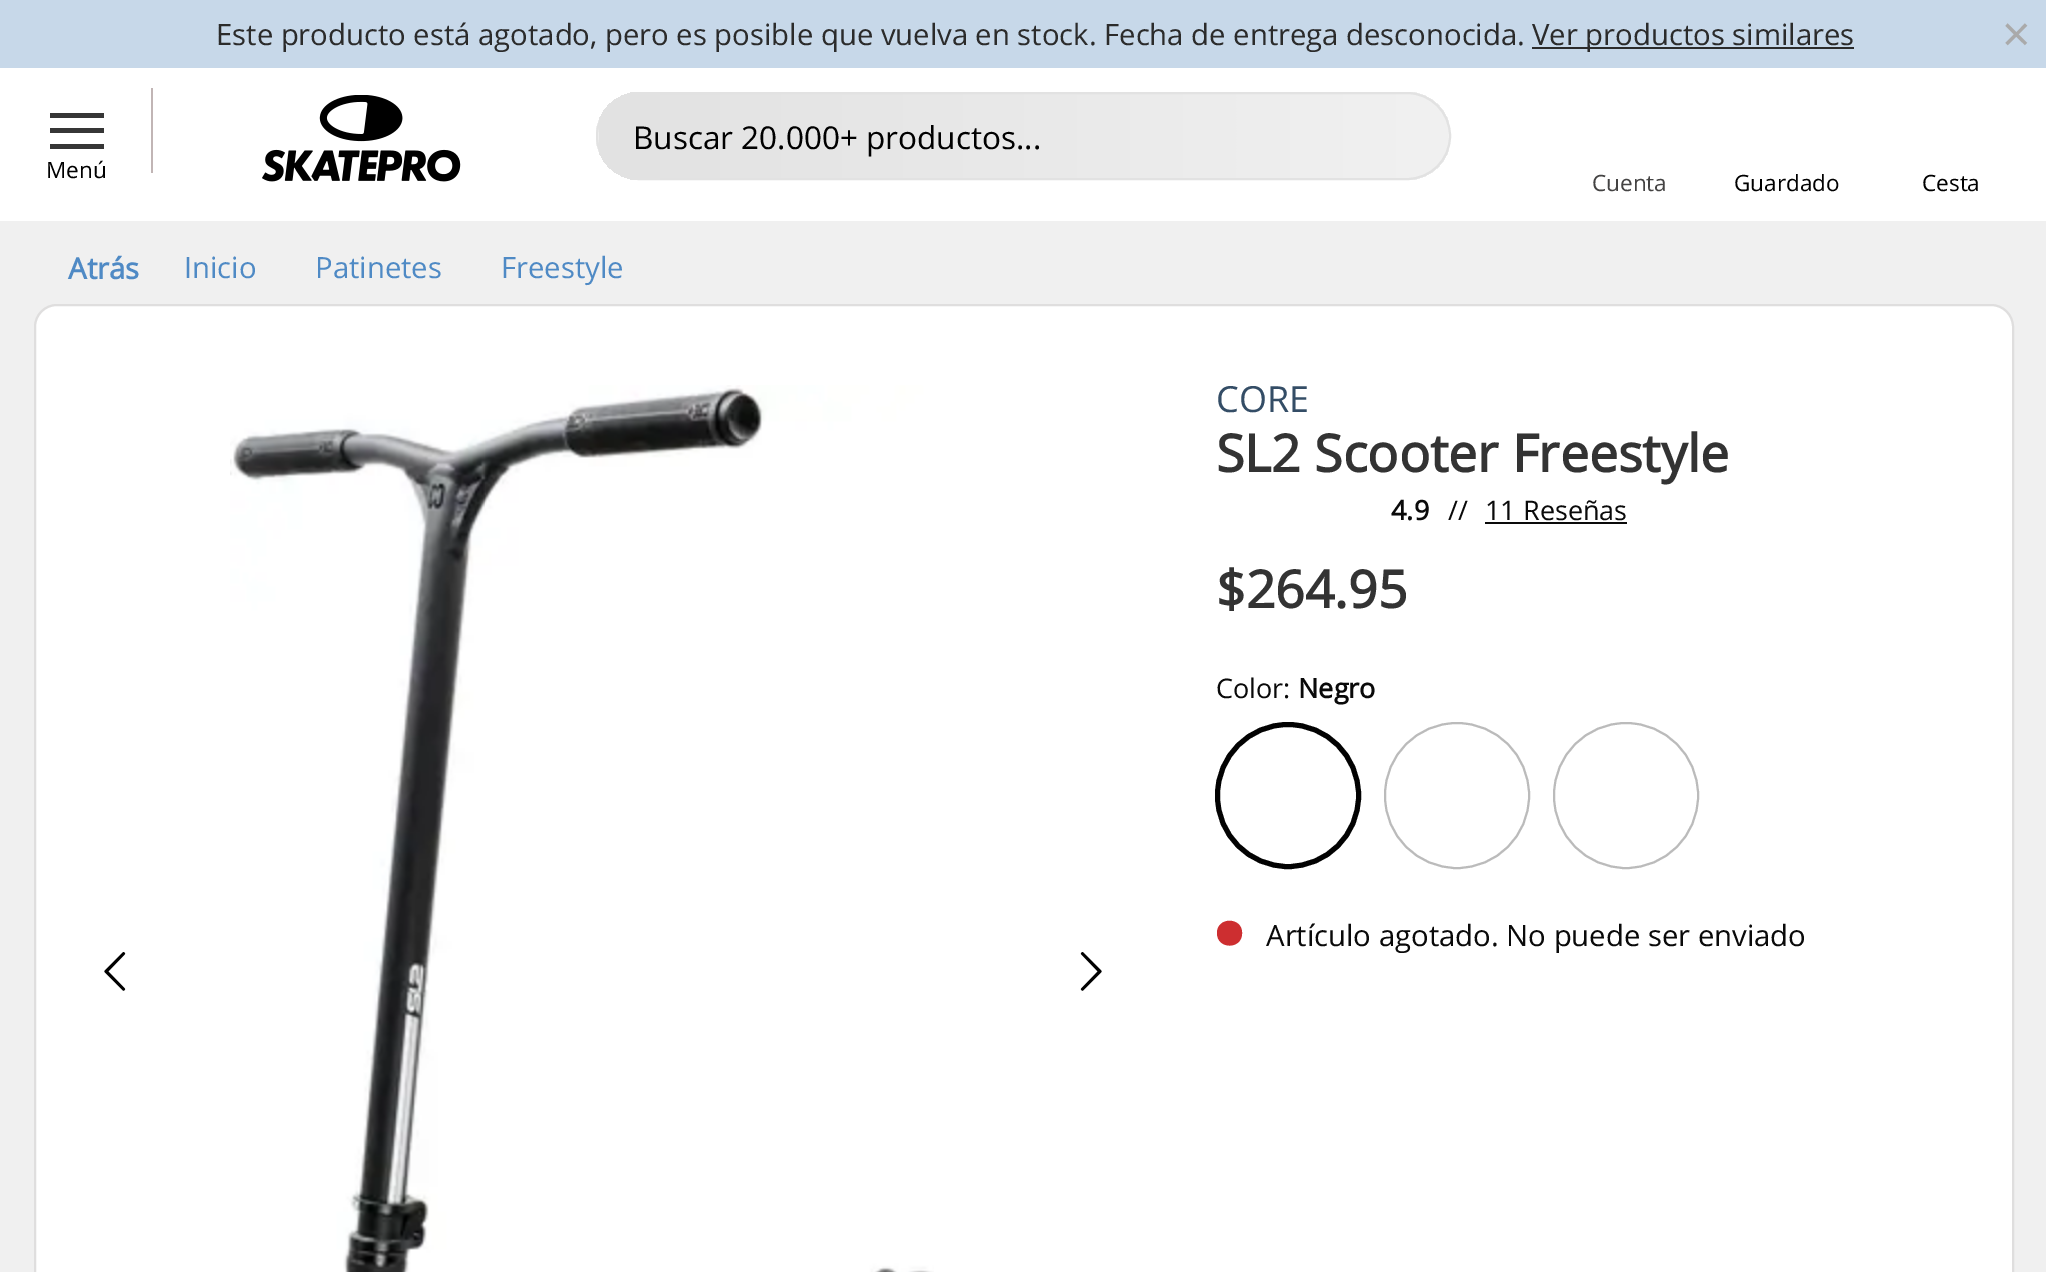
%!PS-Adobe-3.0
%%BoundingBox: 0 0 2046 1272
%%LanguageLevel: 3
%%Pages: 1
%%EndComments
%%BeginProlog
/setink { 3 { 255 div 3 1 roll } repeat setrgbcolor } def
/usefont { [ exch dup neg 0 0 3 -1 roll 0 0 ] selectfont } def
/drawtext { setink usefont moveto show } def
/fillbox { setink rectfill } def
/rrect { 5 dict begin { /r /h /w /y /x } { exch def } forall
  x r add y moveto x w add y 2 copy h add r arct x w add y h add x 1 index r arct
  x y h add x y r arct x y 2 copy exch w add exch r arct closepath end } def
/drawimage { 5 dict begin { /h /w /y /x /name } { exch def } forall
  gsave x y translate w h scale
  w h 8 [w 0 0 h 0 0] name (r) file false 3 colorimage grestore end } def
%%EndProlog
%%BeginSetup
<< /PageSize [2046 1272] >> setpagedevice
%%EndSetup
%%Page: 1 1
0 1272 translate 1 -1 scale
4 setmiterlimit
0 0 2046 1272 199 216 233 fillbox
(Este producto está agotado, pero es posible que vuelva en stock. Fecha de entrega desconocida.) 216 45 /OpenSans-Regular 29.25 43 43 43 drawtext
1532 47 322 2 43 43 43 fillbox
(Ver productos similares) 1532 45 /OpenSans-Regular 29.25 43 43 43 drawtext
(×) 2002 52 /OpenSans-Regular 50 170 170 170 drawtext
0 68 2046 153 255 255 255 fillbox
gsave
596 92 855 88 44 rrect clip newpath
gsave 596 120 moveto 599 120 lineto 599 152 lineto 596 152 lineto closepath clip newpath
<< /ShadingType 2 /ColorSpace /DeviceRGB /Coords [-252 136 599 136] /Extend [true true] /Function << /FunctionType 2 /Domain [0 1] /C0 [0.886 0.886 0.886] /C1 [0.945 0.945 0.945] /N 1 >> >> shfill grestore
gsave 599 92 moveto 1449 92 lineto 1449 180 lineto 599 180 lineto closepath clip newpath
<< /ShadingType 2 /ColorSpace /DeviceRGB /Coords [599 136 1449 136] /Extend [true true] /Function << /FunctionType 2 /Domain [0 1] /C0 [0.886 0.886 0.886] /C1 [0.945 0.945 0.945] /N 1 >> >> shfill grestore
grestore
226 226 226 setink
2 setlinewidth
597 93 853 86 43 rrect stroke
(Buscar 20.000+ productos...) 633 149 /OpenSans-Regular 31.5 0 0 0 drawtext
151 88 2 85 193 181 181 fillbox
50 113 54 5 54 54 54 fillbox
50 128 54 5 54 54 54 fillbox
50 144 54 5 54 54 54 fillbox
(Menú) 46 178 /OpenSans-Regular 22.5 0 0 0 drawtext
(assets/img1.rgb) 262 95 199 87 drawimage
(Cuenta) 1592 191 /OpenSans-Regular 22.5 68 67 67 drawtext
(Guardado) 1734 191 /OpenSans-Regular 22.5 0 0 0 drawtext
(Cesta) 1922 191 /OpenSans-Regular 22.5 0 0 0 drawtext
0 221 2046 1051 240 240 240 fillbox
(Atrás) 68 279 /OpenSans-Bold 29.25 79 138 197 drawtext
(Inicio) 184 278 /OpenSans-Regular 29.25 79 138 197 drawtext
(Patinetes) 315 278 /OpenSans-Regular 29.25 79 138 197 drawtext
(Freestyle) 501 278 /OpenSans-Regular 29.25 79 138 197 drawtext
255 255 255 setink
35 305 1978 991 22 rrect gsave fill grestore
223 222 222 setink
stroke
(assets/img2.rgb) 104 952 22 39 drawimage
(assets/img3.rgb) 230 385 704 887 drawimage
(assets/img4.rgb) 1080 952 22 39 drawimage
(CORE) 1216 412 /OpenSans-Regular 36 52 77 102 drawtext
(SL2 Scooter Freestyle) 1216 472 /OpenSans-Bold 51.75 51 51 51 drawtext
(4.9) 1391 520 /OpenSans-Bold 27 10 10 10 drawtext
(//) 1448 520 /OpenSans-Regular 27 10 10 10 drawtext
(11 Reseñas) 1485 520 /OpenSans-Regular 27 10 10 10 drawtext
1485 522 142 2 10 10 10 fillbox
($264.95) 1216 608 /OpenSans-Bold 51.75 51 51 51 drawtext
(Color:) 1216 698 /OpenSans-Regular 27 10 10 10 drawtext
(Negro) 1298 698 /OpenSans-Bold 27 10 10 10 drawtext
2 2 2 setink
5 setlinewidth
1217.5 724.5 141 142 70.5 rrect stroke
187 187 187 setink
2 setlinewidth
1385 723 144 145 72 rrect stroke
1554 723 144 145 72 rrect stroke
205 46 48 setink
1242 933 moveto 1242.5 949.5 1217 950 1217 933 curveto 1217 916.5 1242.5 917 1242 933 curveto closepath fill
(Artículo agotado. No puede ser enviado) 1266 946 /OpenSans-Regular 29.25 10 10 10 drawtext
showpage
%%EOF
